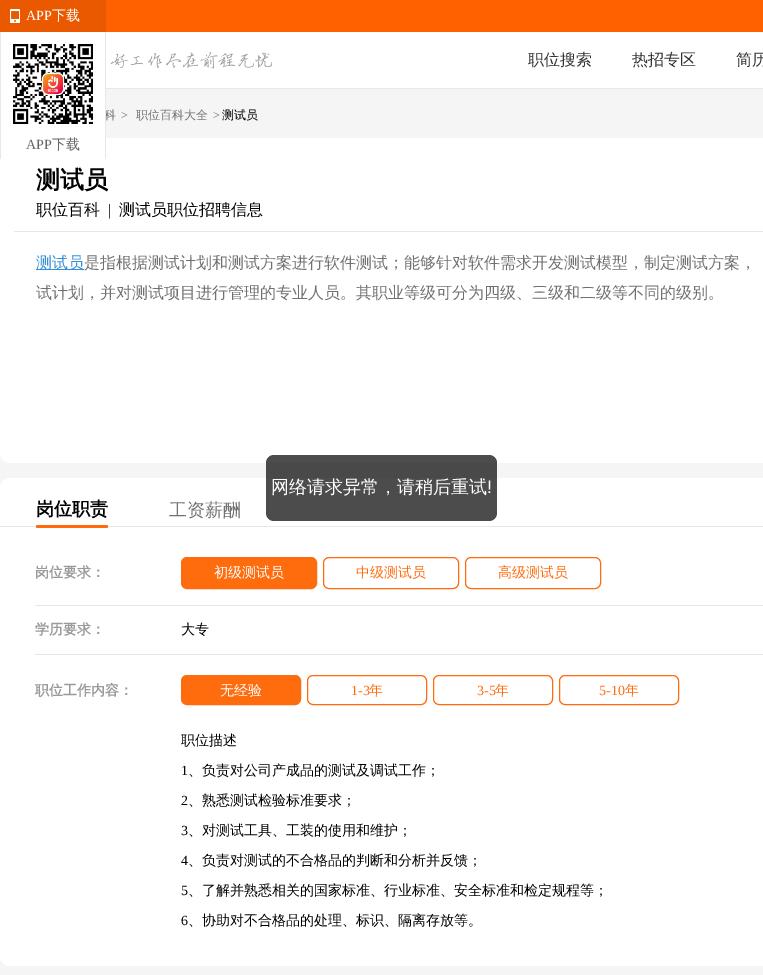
%!PS-Adobe-3.0
%%BoundingBox: 0 0 763 975
%%LanguageLevel: 3
%%Pages: 1
%%EndComments
%%BeginProlog
/setink { 3 { 255 div 3 1 roll } repeat setrgbcolor } def
/usefont { [ exch dup neg 0 0 3 -1 roll 0 0 ] selectfont } def
/drawtext { setink usefont moveto show } def
/fillbox { setink rectfill } def
/setalpha { dup .setfillconstantalpha .setstrokeconstantalpha } def
/rrect { 5 dict begin { /r /h /w /y /x } { exch def } forall
  x r add y moveto x w add y 2 copy h add r arct x w add y h add x 1 index r arct
  x y h add x y r arct x y 2 copy exch w add exch r arct closepath end } def
/drawimage { 5 dict begin { /h /w /y /x /name } { exch def } forall
  gsave x y translate w h scale
  w h 8 [w 0 0 h 0 0] name (r) file false 3 colorimage grestore end } def
%%EndProlog
%%BeginSetup
<< /PageSize [763 975] /PageUsesTransparency true >> setpagedevice
%%EndSetup
%%Page: 1 1
0 .pushpdf14devicefilter
0 975 translate 1 -1 scale
4 setmiterlimit
0 0 763 975 255 255 255 fillbox
106 0 657 32 255 96 0 fillbox
0 0 106 32 234 88 0 fillbox
(assets/img1.rgb) 10 9 10 14 drawimage
(APP) 26 20 /LiberationSerif-Regular 14 255 255 255 drawtext
(下载) 52 20 /WenQuanYiZenHei-Medium 14 255 255 255 drawtext
0 89 763 886 245 245 245 fillbox
(科) 104 119 /WenQuanYiZenHei-Medium 12 112 112 112 drawtext
255 255 255 setink
0 138 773 325 10 rrect fill
1 89 104 54 255 255 255 fillbox
105 32 1 127 232 232 232 fillbox
0 32 1 127 232 232 232 fillbox
(assets/img2.rgb) 13 44 80 80 drawimage
(APP) 26 149 /LiberationSerif-Regular 14 102 102 102 drawtext
(下载) 52 149 /WenQuanYiZenHei-Medium 14 102 102 102 drawtext
106 88 657 1 232 232 232 fillbox
(assets/img3.rgb) 110 52 162 17 drawimage
(职位搜索) 528 65 /WenQuanYiZenHei-Medium 16 51 51 51 drawtext
(热招专区) 632 65 /WenQuanYiZenHei-Medium 16 51 51 51 drawtext
(简历) 736 65 /WenQuanYiZenHei-Medium 16 51 51 51 drawtext
(>) 121 119 /LiberationSerif-Regular 12 112 112 112 drawtext
(职位百科大全) 136 119 /WenQuanYiZenHei-Medium 12 112 112 112 drawtext
(>) 213 119 /LiberationSerif-Regular 12 112 112 112 drawtext
(测试员) 222 119 /WenQuanYiZenHei-Medium 12 0 0 0 drawtext
(测试员) 36 188 /WenQuanYiZenHei-Bold 24 0 0 0 drawtext
(职位百科) 36 215 /WenQuanYiZenHei-Medium 16 0 0 0 drawtext
(|) 108 215 /LiberationSerif-Regular 16 0 0 0 drawtext
(测试员职位招聘信息) 119 215 /WenQuanYiZenHei-Medium 16 0 0 0 drawtext
14 231 749 1 231 231 231 fillbox
36 269 48 1 50 141 215 fillbox
(测试员) 36 268 /WenQuanYiZenHei-Medium 16 50 141 215 drawtext
(是指根据测试计划和测试方案进行软件测试；能够针对软件需求开发测试模型，制定测试方案，) 84 268 /WenQuanYiZenHei-Medium 16 112 112 112 drawtext
(试计划，并对测试项目进行管理的专业人员。其职业等级可分为四级、三级和二级等不同的级别。) 36 298 /WenQuanYiZenHei-Medium 16 112 112 112 drawtext
255 255 255 setink
10 478 moveto 763 478 lineto 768.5 478 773 482.5 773 488 curveto 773 527 lineto 0 527 lineto 0 488 lineto 0 482.5 4.5 478 10 478 curveto closepath fill
0 526 763 1 231 231 231 fillbox
(岗位职责) 36 515 /WenQuanYiZenHei-Bold 18 0 0 0 drawtext
255 255 255 setink
0 527 moveto 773 527 lineto 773 956 lineto 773 961.5 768.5 966 763 966 curveto 10 966 lineto 4.5 966 0 961.5 0 956 curveto closepath fill
255 108 14 setink
36 525 72 3 1.5 rrect fill
(工资薪酬) 169 516 /WenQuanYiZenHei-Medium 18 112 112 112 drawtext
35 605 728 1 231 231 231 fillbox
(岗位要求：) 35 577 /WenQuanYiZenHei-Bold 14 154 154 154 drawtext
255 108 14 setink
181.5 557.5 135 31 5.5 rrect gsave fill grestore
stroke
(初级测试员) 214 577 /WenQuanYiZenHei-Medium 14 255 255 255 drawtext
255 108 14 setink
323.5 557.5 135 31 5.5 rrect stroke
(中级测试员) 356 577 /WenQuanYiZenHei-Medium 14 255 108 14 drawtext
465.5 557.5 135 31 5.5 rrect stroke
(高级测试员) 498 577 /WenQuanYiZenHei-Medium 14 255 108 14 drawtext
35 654 728 1 231 231 231 fillbox
(学历要求：) 35 634 /WenQuanYiZenHei-Bold 14 154 154 154 drawtext
(大专) 181 634 /WenQuanYiZenHei-Medium 14 0 0 0 drawtext
(职位工作内容：) 35 695 /WenQuanYiZenHei-Bold 14 154 154 154 drawtext
255 108 14 setink
181.5 675.5 119 29 5.5 rrect gsave fill grestore
stroke
(无经验) 220 695 /WenQuanYiZenHei-Medium 14 255 255 255 drawtext
255 108 14 setink
307.5 675.5 119 29 5.5 rrect stroke
(1-3) 351 695 /LiberationSerif-Regular 14 255 108 14 drawtext
(年) 369 695 /WenQuanYiZenHei-Medium 14 255 108 14 drawtext
433.5 675.5 119 29 5.5 rrect stroke
(3-5) 477 695 /LiberationSerif-Regular 14 255 108 14 drawtext
(年) 495 695 /WenQuanYiZenHei-Medium 14 255 108 14 drawtext
559.5 675.5 119 29 5.5 rrect stroke
(5-10) 599 695 /LiberationSerif-Regular 14 255 108 14 drawtext
(年) 625 695 /WenQuanYiZenHei-Medium 14 255 108 14 drawtext
(职位描述) 181 745 /WenQuanYiZenHei-Medium 14 0 0 0 drawtext
(1) 181 775 /LiberationSerif-Regular 14 0 0 0 drawtext
(、负责对公司产成品的测试及调试工作；) 188 775 /WenQuanYiZenHei-Medium 14 0 0 0 drawtext
(2) 181 805 /LiberationSerif-Regular 14 0 0 0 drawtext
(、熟悉测试检验标准要求；) 188 805 /WenQuanYiZenHei-Medium 14 0 0 0 drawtext
(3) 181 835 /LiberationSerif-Regular 14 0 0 0 drawtext
(、对测试工具、工装的使用和维护；) 188 835 /WenQuanYiZenHei-Medium 14 0 0 0 drawtext
(4) 181 865 /LiberationSerif-Regular 14 0 0 0 drawtext
(、负责对测试的不合格品的判断和分析并反馈；) 188 865 /WenQuanYiZenHei-Medium 14 0 0 0 drawtext
(5) 181 895 /LiberationSerif-Regular 14 0 0 0 drawtext
(、了解并熟悉相关的国家标准、行业标准、安全标准和检定规程等；) 188 895 /WenQuanYiZenHei-Medium 14 0 0 0 drawtext
(6) 181 925 /LiberationSerif-Regular 14 0 0 0 drawtext
(、协助对不合格品的处理、标识、隔离存放等。) 188 925 /WenQuanYiZenHei-Medium 14 0 0 0 drawtext
0.7 setalpha
266 455 231 66 8 rrect fill
1 setalpha
(网络请求异常，请稍后重试) 271 493 /WenQuanYiZenHei-Medium 18 255 255 255 drawtext
(!) 487 493 /LiberationSans-Regular 18 255 255 255 drawtext
.poppdf14devicefilter showpage
%%EOF
